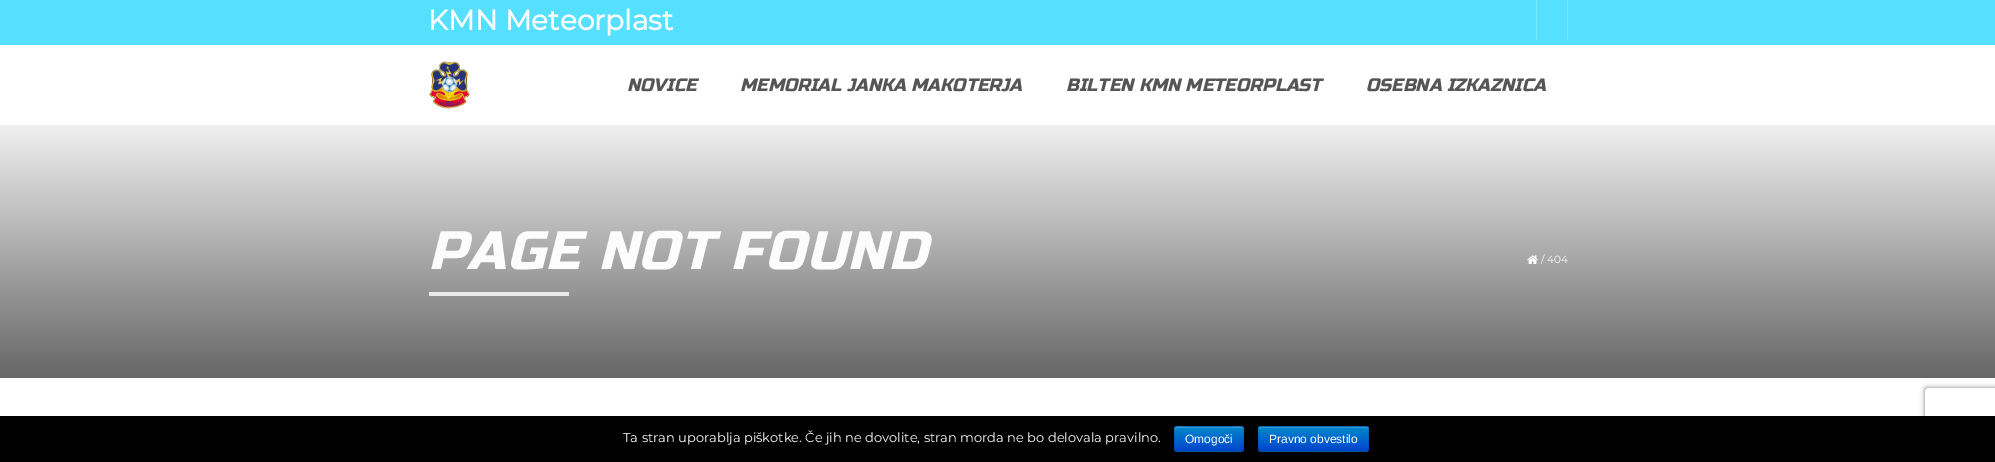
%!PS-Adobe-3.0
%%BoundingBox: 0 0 1995 462
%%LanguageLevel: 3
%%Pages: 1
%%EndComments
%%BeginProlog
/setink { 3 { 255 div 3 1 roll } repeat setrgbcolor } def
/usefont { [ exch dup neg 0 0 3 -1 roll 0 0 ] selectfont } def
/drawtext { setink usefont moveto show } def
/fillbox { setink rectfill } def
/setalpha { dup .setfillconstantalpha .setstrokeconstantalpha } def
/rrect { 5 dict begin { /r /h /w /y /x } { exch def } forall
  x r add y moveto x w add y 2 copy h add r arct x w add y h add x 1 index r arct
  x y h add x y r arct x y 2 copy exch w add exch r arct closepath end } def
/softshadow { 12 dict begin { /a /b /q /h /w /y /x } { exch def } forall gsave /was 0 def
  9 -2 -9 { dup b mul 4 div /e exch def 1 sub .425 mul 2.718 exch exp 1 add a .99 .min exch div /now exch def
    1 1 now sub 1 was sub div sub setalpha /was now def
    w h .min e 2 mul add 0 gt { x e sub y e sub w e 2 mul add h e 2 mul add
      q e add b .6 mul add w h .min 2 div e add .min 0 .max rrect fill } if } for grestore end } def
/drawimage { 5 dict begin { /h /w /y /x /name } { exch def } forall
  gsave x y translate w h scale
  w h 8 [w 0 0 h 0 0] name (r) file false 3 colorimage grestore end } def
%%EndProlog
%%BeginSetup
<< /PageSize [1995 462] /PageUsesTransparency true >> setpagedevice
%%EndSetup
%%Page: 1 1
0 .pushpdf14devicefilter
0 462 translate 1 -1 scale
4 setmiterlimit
0 0 1995 462 255 255 255 fillbox
0 0 1995 45 86 224 255 fillbox
(KMN Meteorplast) 428 30 /Montserrat-Bold 28 252 252 252 drawtext
1567 0 1 40 120 230 255 fillbox
1536 0 1 40 130 232 255 fillbox
(assets/img1.rgb) 429 61 41 48 drawimage
(NOVICE) 627 91 /RussoOne-Italic 18 85 85 85 drawtext
(MEMORIAL JANKA MAKOTERJA) 740 91 /RussoOne-Italic 18 85 85 85 drawtext
(BILTEN KMN METEORPLAST) 1066 91 /RussoOne-Italic 18 85 85 85 drawtext
(OSEBNA IZKAZNICA) 1366 91 /RussoOne-Italic 18 85 85 85 drawtext
gsave 0 125 moveto 1995 125 lineto 1995 378 lineto 0 378 lineto closepath clip newpath
<< /ShadingType 2 /ColorSpace /DeviceRGB /Coords [998 98 998 378] /Extend [true true] /Function << /FunctionType 2 /Domain [0 1] /C0 [1 1 1] /C1 [0.4 0.4 0.4] /N 1 >> >> shfill grestore
/RussoOne-Italic 54 usefont
252 252 252 setink
428 269 moveto 1 0 (PAGE NOT FOUND) ashow
429 292 140 4 234 234 234 fillbox
(assets/img2.rgb) 1527 255 11 9 drawimage
(/ 404) 1541 263 /Montserrat-Thin 10.5 252 252 252 drawtext
gsave
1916 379 moveto 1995 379 lineto 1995 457 lineto 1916 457 lineto closepath 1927 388 moveto 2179 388 lineto 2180 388 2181 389 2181 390 curveto 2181 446 lineto 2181 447 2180 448 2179 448 curveto 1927 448 lineto 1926 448 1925 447 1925 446 curveto 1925 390 lineto 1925 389 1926 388 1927 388 curveto closepath eoclip newpath
128 128 128 setink
1925 388 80 60 2 2.5 1 softshadow
grestore
0 416 1995 46 0 0 0 fillbox
(Ta stran uporablja piškotke. Če jih ne dovolite, stran morda ne bo delovala pravilno.) 623 442 /Montserrat-Thin 13 252 252 252 drawtext
0 109 204 setink
1174 426 70 26 3 rrect fill
gsave
1174 426 70 26 3 rrect clip newpath
gsave 1174 427 moveto 1244 427 lineto 1244 451 lineto 1174 451 lineto closepath clip newpath
<< /ShadingType 2 /ColorSpace /DeviceRGB /Coords [1209 427 1209 451] /Extend [true true] /Function << /FunctionType 2 /Domain [0 1] /C0 [0 0.533 0.8] /C1 [0 0.267 0.8] /N 1 >> >> shfill grestore
grestore
0.2 setalpha
255 255 255 setink
1177 428 moveto 1242 428 lineto 1243 430 lineto 1243 424 1234 427 1230 427 curveto 1188 427 lineto 1184 427 1175 424 1175 430 curveto 1175 429 1176 428 1177 428 curveto closepath fill
0.25 setalpha
0 0 0 setink
1243 451 moveto 1242.5 451 lineto 1240.5 452.5 1194 451.5 1187.5 451.5 curveto 1177 451.5 lineto 1175 451 lineto stroke
0.1 setalpha
1175 451 moveto 1173.5 449 1174.5 441.5 1174.5 439 curveto 1174.5 424 1172 426.5 1187.5 426.5 curveto 1230.5 426.5 lineto 1246 426.5 1243.5 424 1243.5 439 curveto 1243.5 441.5 1244.5 449 1243 451 curveto stroke
1 setalpha
(Omogoči) 1185 443 /LiberationSans-Regular 12 252 252 252 drawtext
0 109 204 setink
1258 426 111 26 3 rrect fill
gsave
1258 426 111 26 3 rrect clip newpath
gsave 1258 427 moveto 1369 427 lineto 1369 451 lineto 1258 451 lineto closepath clip newpath
<< /ShadingType 2 /ColorSpace /DeviceRGB /Coords [1314 427 1314 451] /Extend [true true] /Function << /FunctionType 2 /Domain [0 1] /C0 [0 0.533 0.8] /C1 [0 0.267 0.8] /N 1 >> >> shfill grestore
grestore
0.2 setalpha
255 255 255 setink
1261 428 moveto 1366 428 lineto 1367 428 1368 429 1368 430 curveto 1368 429 1368 427 1366 427 curveto 1261 427 lineto 1259 427 1259 429 1259 430 curveto 1259 429 1260 428 1261 428 curveto closepath fill
0.25 setalpha
0 0 0 setink
1368 451 moveto 1367.5 451 lineto 1365.5 452.5 1287.5 451.5 1278.5 451.5 curveto 1261 451.5 lineto 1259 451 lineto stroke
0.1 setalpha
1259 451 moveto 1257.5 449 1258.5 441.5 1258.5 439 curveto 1258.5 422 1257 426.5 1278.5 426.5 curveto 1348.5 426.5 lineto 1370 426.5 1368.5 422 1368.5 439 curveto 1368.5 441.5 1369.5 449 1368 451 curveto stroke
1 setalpha
(Pravno obvestilo) 1269 443 /LiberationSans-Regular 12 252 252 252 drawtext
.poppdf14devicefilter showpage
%%EOF
